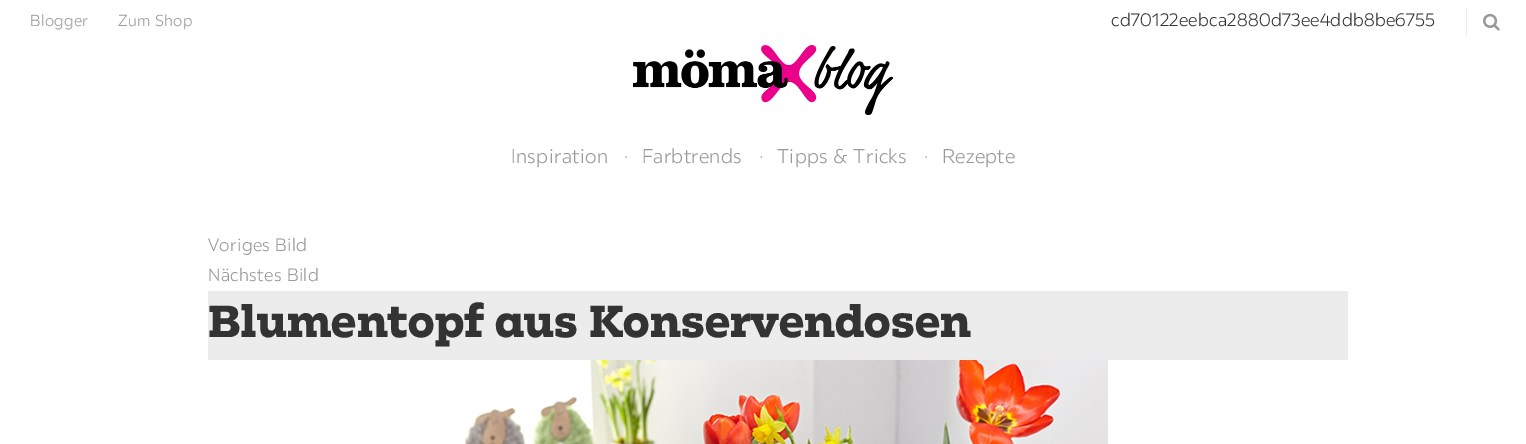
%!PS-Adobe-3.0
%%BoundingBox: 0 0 1526 444
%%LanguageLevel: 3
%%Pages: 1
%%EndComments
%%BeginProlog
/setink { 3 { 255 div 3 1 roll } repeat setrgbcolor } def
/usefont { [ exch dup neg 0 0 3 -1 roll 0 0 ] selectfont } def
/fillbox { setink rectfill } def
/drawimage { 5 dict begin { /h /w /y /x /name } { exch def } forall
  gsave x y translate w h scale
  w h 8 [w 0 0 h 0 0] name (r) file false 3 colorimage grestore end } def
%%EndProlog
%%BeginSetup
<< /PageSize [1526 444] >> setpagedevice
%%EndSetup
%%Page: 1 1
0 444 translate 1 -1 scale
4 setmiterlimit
0 0 1526 444 255 255 255 fillbox
/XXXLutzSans-Light 16 usefont
153 153 153 setink
30 26 moveto 0.35 0 (Blogger) ashow
118 26 moveto 0.35 0 (Zum Shop) ashow
/XXXLutzSans-Light 18 usefont
51 51 51 setink
1111 26 moveto 0.35 0 (cd70122eebca2880d73ee4ddb8be6755) ashow
1466 7 1 30 236 236 236 fillbox
(assets/img1.rgb) 1483 13 17 18 drawimage
(assets/img2.rgb) 633 45 260 70 drawimage
/XXXLutzSans-Light 20 usefont
153 153 153 setink
511 163 moveto 0.35 0 (Inspiration) ashow
/XXXLutzSans-Light 18 usefont
624 162 moveto 0.35 0 (·) ashow
/XXXLutzSans-Light 20 usefont
642 163 moveto 0.35 0 (Farbtrends) ashow
/XXXLutzSans-Light 18 usefont
759 162 moveto 0.35 0 (·) ashow
/XXXLutzSans-Light 20 usefont
777 163 moveto 0.35 0 (Tipps & Tricks) ashow
/XXXLutzSans-Light 18 usefont
924 162 moveto 0.35 0 (·) ashow
/XXXLutzSans-Light 20 usefont
942 163 moveto 0.35 0 (Rezepte) ashow
/XXXLutzSans-Light 18 usefont
208 251 moveto 0.35 0 (Voriges Bild) ashow
208 281 moveto 0.35 0 (Nächstes Bild) ashow
208 291 1140 69 236 236 236 fillbox
/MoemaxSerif-Black 45 usefont
51 51 51 setink
208 337 moveto 0.35 0 (Blumentopf aus Konservendosen) ashow
(assets/img3.rgb) 464 360 644 84 drawimage
showpage
%%EOF
